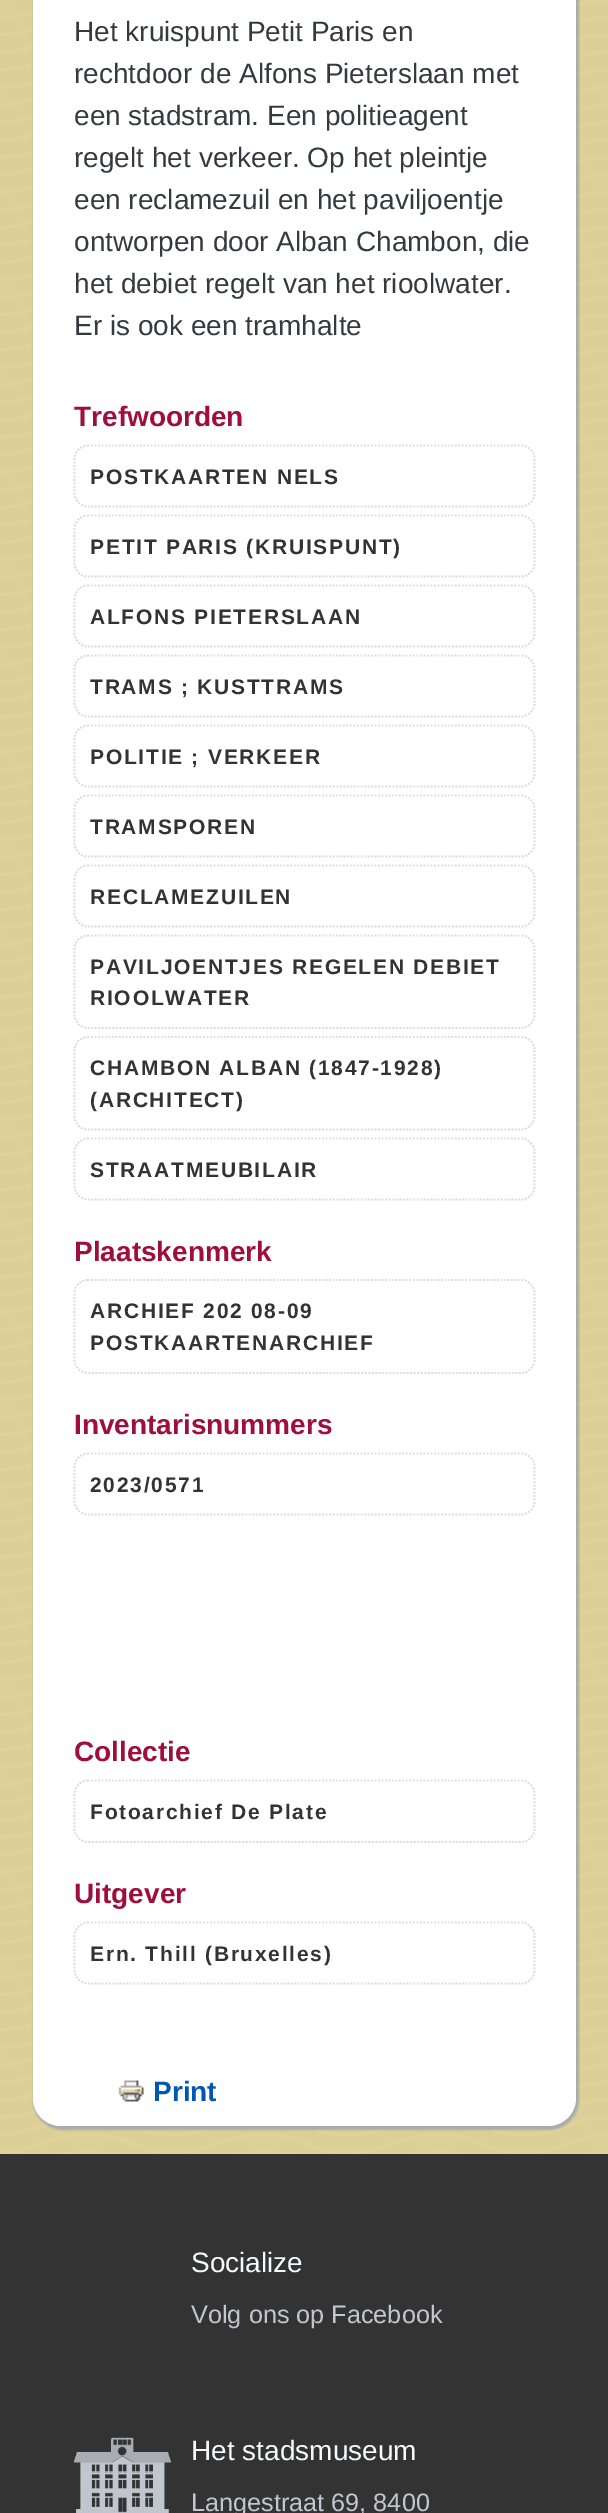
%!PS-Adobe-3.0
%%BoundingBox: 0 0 608 2513
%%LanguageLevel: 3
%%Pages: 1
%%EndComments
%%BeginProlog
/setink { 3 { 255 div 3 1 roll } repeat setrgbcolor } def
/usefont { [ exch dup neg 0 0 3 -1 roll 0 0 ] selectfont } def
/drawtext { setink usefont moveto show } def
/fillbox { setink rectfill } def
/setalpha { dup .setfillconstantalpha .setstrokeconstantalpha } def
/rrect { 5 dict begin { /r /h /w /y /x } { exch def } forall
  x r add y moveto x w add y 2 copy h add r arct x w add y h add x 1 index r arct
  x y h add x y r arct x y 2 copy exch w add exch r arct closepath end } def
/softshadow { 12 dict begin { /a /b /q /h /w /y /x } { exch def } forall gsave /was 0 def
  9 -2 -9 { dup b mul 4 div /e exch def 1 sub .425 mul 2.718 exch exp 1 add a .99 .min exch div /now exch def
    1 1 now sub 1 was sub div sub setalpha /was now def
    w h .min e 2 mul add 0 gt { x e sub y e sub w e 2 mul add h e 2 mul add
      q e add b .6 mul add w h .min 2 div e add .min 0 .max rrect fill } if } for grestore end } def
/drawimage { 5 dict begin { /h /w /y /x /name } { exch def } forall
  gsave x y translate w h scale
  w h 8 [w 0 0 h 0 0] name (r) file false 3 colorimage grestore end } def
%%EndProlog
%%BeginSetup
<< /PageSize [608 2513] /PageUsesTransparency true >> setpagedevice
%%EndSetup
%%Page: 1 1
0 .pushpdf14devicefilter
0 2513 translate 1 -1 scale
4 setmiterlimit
0 0 608 2513 220 207 151 fillbox
(assets/img1.rgb) 0 0 608 2154 drawimage
170 170 170 setink
33 -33 546 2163 30 1 1 softshadow
255 255 255 setink
33 -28 543 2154 28 rrect fill
(Het kruispunt Petit Paris en) 74 41 /LiberationSans-Regular 28 52 58 64 drawtext
(rechtdoor de Alfons Pieterslaan met) 74 83 /LiberationSans-Regular 28 52 58 64 drawtext
(een stadstram. Een politieagent) 74 125 /LiberationSans-Regular 28 52 58 64 drawtext
(regelt het verkeer. Op het pleintje) 74 167 /LiberationSans-Regular 28 52 58 64 drawtext
(een reclamezuil en het paviljoentje) 74 209 /LiberationSans-Regular 28 52 58 64 drawtext
(ontworpen door Alban Chambon, die) 74 251 /LiberationSans-Regular 28 52 58 64 drawtext
(het debiet regelt van het rioolwater.) 74 293 /LiberationSans-Regular 28 52 58 64 drawtext
(Er is ook een tramhalte) 74 335 /LiberationSans-Regular 28 52 58 64 drawtext
(Trefwoorden) 74 426 /LiberationSans-Bold 28 158 15 61 drawtext
221 221 221 setink
1.8 setlinewidth
[1.75 1.75] 0 setdash
87.5 445.5 moveto 521.5 445.5 lineto 528.5 445.5 534.5 451.5 534.5 458.5 curveto 534.5 493.5 lineto 534.5 500.5 528.5 506.5 521.5 506.5 curveto 87.5 506.5 lineto 80.5 506.5 74.5 500.5 74.5 493.5 curveto 74.5 458.5 lineto 74.5 451.5 80.5 445.5 87.5 445.5 curveto closepath stroke
/LiberationSans-Bold 21 usefont
51 51 51 setink
90 484 moveto 1.75 0 (POSTKAARTEN NELS) ashow
221 221 221 setink
87.5 515.5 moveto 521.5 515.5 lineto 528.5 515.5 534.5 521.5 534.5 528.5 curveto 534.5 563.5 lineto 534.5 570.5 528.5 576.5 521.5 576.5 curveto 87.5 576.5 lineto 80.5 576.5 74.5 570.5 74.5 563.5 curveto 74.5 528.5 lineto 74.5 521.5 80.5 515.5 87.5 515.5 curveto closepath stroke
51 51 51 setink
90 554 moveto 1.75 0 (PETIT PARIS \(KRUISPUNT\)) ashow
221 221 221 setink
87.5 585.5 moveto 521.5 585.5 lineto 528.5 585.5 534.5 591.5 534.5 598.5 curveto 534.5 633.5 lineto 534.5 640.5 528.5 646.5 521.5 646.5 curveto 87.5 646.5 lineto 80.5 646.5 74.5 640.5 74.5 633.5 curveto 74.5 598.5 lineto 74.5 591.5 80.5 585.5 87.5 585.5 curveto closepath stroke
51 51 51 setink
90 624 moveto 1.75 0 (ALFONS PIETERSLAAN) ashow
221 221 221 setink
87.5 655.5 moveto 521.5 655.5 lineto 528.5 655.5 534.5 661.5 534.5 668.5 curveto 534.5 703.5 lineto 534.5 710.5 528.5 716.5 521.5 716.5 curveto 87.5 716.5 lineto 80.5 716.5 74.5 710.5 74.5 703.5 curveto 74.5 668.5 lineto 74.5 661.5 80.5 655.5 87.5 655.5 curveto closepath stroke
51 51 51 setink
90 694 moveto 1.75 0 (TRAMS ; KUSTTRAMS) ashow
221 221 221 setink
87.5 725.5 moveto 521.5 725.5 lineto 528.5 725.5 534.5 731.5 534.5 738.5 curveto 534.5 773.5 lineto 534.5 780.5 528.5 786.5 521.5 786.5 curveto 87.5 786.5 lineto 80.5 786.5 74.5 780.5 74.5 773.5 curveto 74.5 738.5 lineto 74.5 731.5 80.5 725.5 87.5 725.5 curveto closepath stroke
51 51 51 setink
90 764 moveto 1.75 0 (POLITIE ; VERKEER) ashow
221 221 221 setink
87.5 795.5 moveto 521.5 795.5 lineto 528.5 795.5 534.5 801.5 534.5 808.5 curveto 534.5 843.5 lineto 534.5 850.5 528.5 856.5 521.5 856.5 curveto 87.5 856.5 lineto 80.5 856.5 74.5 850.5 74.5 843.5 curveto 74.5 808.5 lineto 74.5 801.5 80.5 795.5 87.5 795.5 curveto closepath stroke
51 51 51 setink
90 834 moveto 1.75 0 (TRAMSPOREN) ashow
221 221 221 setink
87.5 865.5 moveto 521.5 865.5 lineto 528.5 865.5 534.5 871.5 534.5 878.5 curveto 534.5 913.5 lineto 534.5 920.5 528.5 926.5 521.5 926.5 curveto 87.5 926.5 lineto 80.5 926.5 74.5 920.5 74.5 913.5 curveto 74.5 878.5 lineto 74.5 871.5 80.5 865.5 87.5 865.5 curveto closepath stroke
51 51 51 setink
90 904 moveto 1.75 0 (RECLAMEZUILEN) ashow
221 221 221 setink
87.5 935.5 moveto 521.5 935.5 lineto 528.5 935.5 534.5 941.5 534.5 948.5 curveto 534.5 1015 lineto 534.5 1022 528.5 1028 521.5 1028 curveto 87.5 1028 lineto 80.5 1028 74.5 1022 74.5 1015 curveto 74.5 948.5 lineto 74.5 941.5 80.5 935.5 87.5 935.5 curveto closepath stroke
51 51 51 setink
90 974 moveto 1.75 0 (PAVILJOENTJES REGELEN DEBIET) ashow
90 1005 moveto 1.75 0 (RIOOLWATER) ashow
221 221 221 setink
87.5 1037 moveto 521.5 1037 lineto 528.5 1037 534.5 1043 534.5 1050 curveto 534.5 1116.5 lineto 534.5 1123.5 528.5 1129.5 521.5 1129.5 curveto 87.5 1129.5 lineto 80.5 1129.5 74.5 1123.5 74.5 1116.5 curveto 74.5 1050 lineto 74.5 1043 80.5 1037 87.5 1037 curveto closepath stroke
51 51 51 setink
90 1075 moveto 1.75 0 (CHAMBON ALBAN \(1847-1928\)) ashow
90 1107 moveto 1.75 0 (\(ARCHITECT\)) ashow
221 221 221 setink
87.5 1138.5 moveto 521.5 1138.5 lineto 528.5 1138.5 534.5 1144.5 534.5 1151.5 curveto 534.5 1186.5 lineto 534.5 1193.5 528.5 1199.5 521.5 1199.5 curveto 87.5 1199.5 lineto 80.5 1199.5 74.5 1193.5 74.5 1186.5 curveto 74.5 1151.5 lineto 74.5 1144.5 80.5 1138.5 87.5 1138.5 curveto closepath stroke
51 51 51 setink
90 1177 moveto 1.75 0 (STRAATMEUBILAIR) ashow
(Plaatskenmerk) 74 1261 /LiberationSans-Bold 28 158 15 61 drawtext
221 221 221 setink
87.5 1280 moveto 521.5 1280 lineto 528.5 1280 534.5 1286 534.5 1293 curveto 534.5 1360 lineto 534.5 1367 528.5 1373 521.5 1373 curveto 87.5 1373 lineto 80.5 1373 74.5 1367 74.5 1360 curveto 74.5 1293 lineto 74.5 1286 80.5 1280 87.5 1280 curveto closepath stroke
/LiberationSans-Bold 21 usefont
51 51 51 setink
90 1318 moveto 1.75 0 (ARCHIEF 202 08-09) ashow
90 1350 moveto 1.75 0 (POSTKAARTENARCHIEF) ashow
(Inventarisnummers) 74 1434 /LiberationSans-Bold 28 158 15 61 drawtext
221 221 221 setink
87.5 1453.5 moveto 521.5 1453.5 lineto 528.5 1453.5 534.5 1459.5 534.5 1466.5 curveto 534.5 1501.5 lineto 534.5 1508.5 528.5 1514.5 521.5 1514.5 curveto 87.5 1514.5 lineto 80.5 1514.5 74.5 1508.5 74.5 1501.5 curveto 74.5 1466.5 lineto 74.5 1459.5 80.5 1453.5 87.5 1453.5 curveto closepath stroke
/LiberationSans-Bold 21 usefont
51 51 51 setink
90 1492 moveto 1.75 0 (2023/0571) ashow
(Collectie) 74 1761 /LiberationSans-Bold 28 158 15 61 drawtext
221 221 221 setink
87.5 1780.5 moveto 521.5 1780.5 lineto 528.5 1780.5 534.5 1786.5 534.5 1794 curveto 534.5 1829 lineto 534.5 1836 528.5 1842 521.5 1842 curveto 87.5 1842 lineto 80.5 1842 74.5 1836 74.5 1829 curveto 74.5 1794 lineto 74.5 1786.5 80.5 1780.5 87.5 1780.5 curveto closepath stroke
/LiberationSans-Bold 21 usefont
51 51 51 setink
90 1819 moveto 1.75 0 (Fotoarchief De Plate) ashow
(Uitgever) 74 1903 /LiberationSans-Bold 28 158 15 61 drawtext
221 221 221 setink
87.5 1922.5 moveto 521.5 1922.5 lineto 528.5 1922.5 534.5 1928.5 534.5 1935.5 curveto 534.5 1970.5 lineto 534.5 1977.5 528.5 1983.5 521.5 1983.5 curveto 87.5 1983.5 lineto 80.5 1983.5 74.5 1977.5 74.5 1970.5 curveto 74.5 1935.5 lineto 74.5 1928.5 80.5 1922.5 87.5 1922.5 curveto closepath stroke
/LiberationSans-Bold 21 usefont
51 51 51 setink
90 1961 moveto 1.75 0 (Ern. Thill \(Bruxelles\)) ashow
(assets/img2.rgb) 118 2080 26 22 drawimage
(Print) 153 2101 /LiberationSans-Bold 28 0 86 179 drawtext
0 2154 608 359 51 51 51 fillbox
(Socialize) 191 2272 /LiberationSans-Regular 28 248 249 250 drawtext
(Volg ons op Facebook) 191 2323 /LiberationSans-Regular 25.25 193 199 206 drawtext
(assets/img3.rgb) 73 2437 99 76 drawimage
(Het stadsmuseum) 191 2460 /LiberationSans-Regular 28 248 249 250 drawtext
(Langestraat 69, 8400) 191 2511 /LiberationSans-Regular 25.25 193 199 206 drawtext
.poppdf14devicefilter showpage
%%EOF
